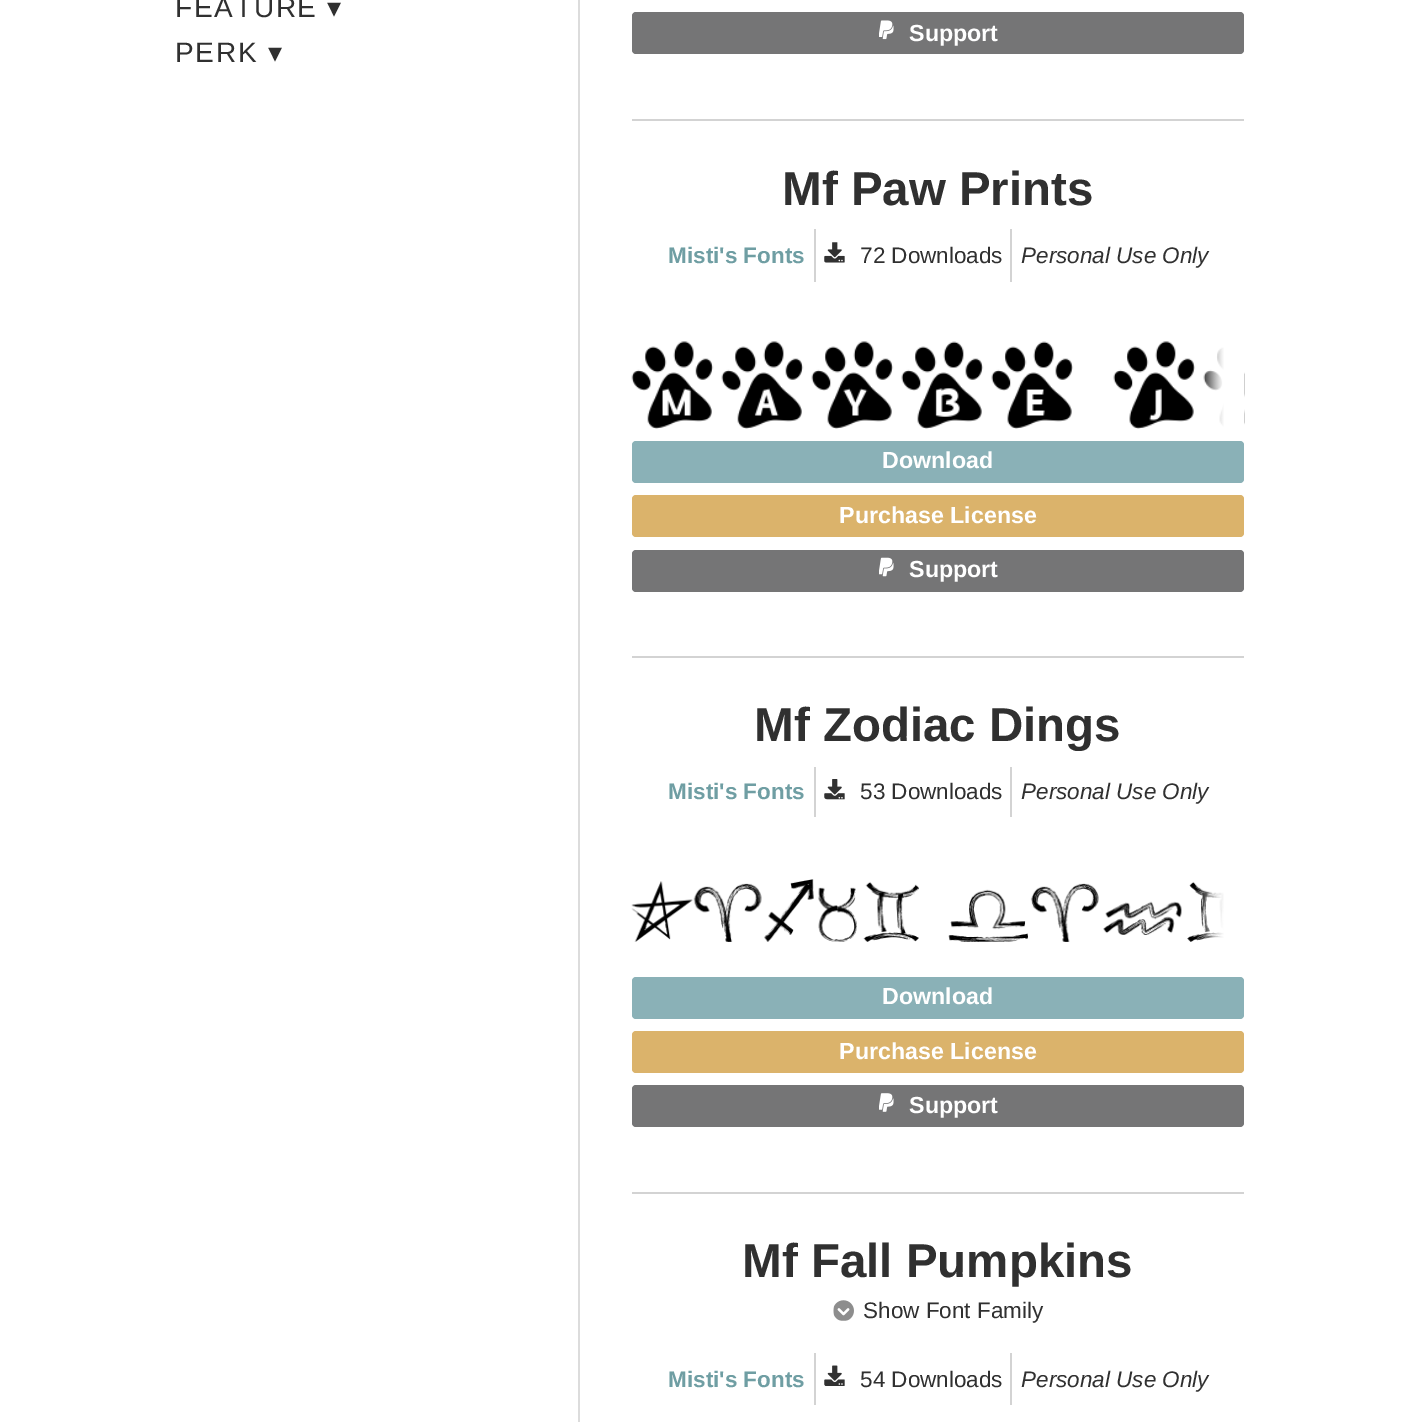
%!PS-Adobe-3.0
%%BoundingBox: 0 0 1419 1422
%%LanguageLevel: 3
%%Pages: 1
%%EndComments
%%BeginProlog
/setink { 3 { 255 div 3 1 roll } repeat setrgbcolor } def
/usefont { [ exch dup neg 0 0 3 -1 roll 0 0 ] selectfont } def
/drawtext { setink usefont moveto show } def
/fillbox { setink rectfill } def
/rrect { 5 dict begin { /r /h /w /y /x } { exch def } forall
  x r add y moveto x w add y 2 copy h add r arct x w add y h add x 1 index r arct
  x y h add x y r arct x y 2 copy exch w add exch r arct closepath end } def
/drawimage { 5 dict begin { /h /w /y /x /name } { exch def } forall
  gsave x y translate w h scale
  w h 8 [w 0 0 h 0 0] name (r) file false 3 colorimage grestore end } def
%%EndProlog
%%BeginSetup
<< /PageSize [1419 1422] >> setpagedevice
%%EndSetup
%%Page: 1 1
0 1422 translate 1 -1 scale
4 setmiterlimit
0 0 1419 1422 255 255 255 fillbox
/LiberationSans-Regular 28 usefont
48 48 48 setink
175 17 moveto 1.75 0 (FEATURE) ashow
/DejaVuSans-Regular 28 usefont
327 17 moveto 1.75 0 (▾) ashow
/LiberationSans-Regular 28 usefont
175 62 moveto 1.75 0 (PERK) ashow
/DejaVuSans-Regular 28 usefont
268 62 moveto 1.75 0 (▾) ashow
578 0 2 1422 220 220 220 fillbox
117 117 118 setink
632 12 612 42 4 rrect fill
(assets/img1.rgb) 879 20 15 20 drawimage
(Support) 909 41 /LiberationSans-Bold 23.25 255 255 255 drawtext
632 119 612 2 211 211 211 fillbox
(Mf Paw Prints) 782 205 /LiberationSans-Bold 47.5 48 48 48 drawtext
(Misti's Fonts) 668 263 /LiberationSans-Bold 22.5 111 158 163 drawtext
814 229 2 53 211 211 211 fillbox
(assets/img2.rgb) 824 242 21 21 drawimage
(72 Downloads) 860 263 /LiberationSans-Regular 22.5 48 48 48 drawtext
1010 229 2 53 211 211 211 fillbox
(Personal Use Only) 1021 263 /LiberationSans-Italic 22.5 48 48 48 drawtext
(assets/img3.rgb) 631 341 614 88 drawimage
(assets/img4.rgb) 1203 346 42 83 drawimage
138 177 183 setink
632 441 612 42 4 rrect fill
(Download) 882 468 /LiberationSans-Bold 23.25 255 255 255 drawtext
219 179 107 setink
632 495 612 42 4 rrect fill
(Purchase License) 839 523 /LiberationSans-Bold 23.25 255 255 255 drawtext
117 117 118 setink
632 550 612 42 4 rrect fill
(assets/img5.rgb) 879 557 15 20 drawimage
(Support) 909 577 /LiberationSans-Bold 23.25 255 255 255 drawtext
632 656 612 2 211 211 211 fillbox
(Mf Zodiac Dings) 754 741 /LiberationSans-Bold 47.5 48 48 48 drawtext
(Misti's Fonts) 668 799 /LiberationSans-Bold 22.5 111 158 163 drawtext
814 767 2 50 211 211 211 fillbox
(assets/img6.rgb) 824 779 21 21 drawimage
(53 Downloads) 860 799 /LiberationSans-Regular 22.5 48 48 48 drawtext
1010 767 2 50 211 211 211 fillbox
(Personal Use Only) 1021 799 /LiberationSans-Italic 22.5 48 48 48 drawtext
(assets/img7.rgb) 631 879 612 63 drawimage
(assets/img8.rgb) 1196 884 47 58 drawimage
138 177 183 setink
632 977 612 42 4 rrect fill
(Download) 882 1004 /LiberationSans-Bold 23.25 255 255 255 drawtext
219 179 107 setink
632 1031 612 42 4 rrect fill
(Purchase License) 839 1059 /LiberationSans-Bold 23.25 255 255 255 drawtext
117 117 118 setink
632 1085 612 42 4 rrect fill
(assets/img9.rgb) 879 1093 15 19 drawimage
(Support) 909 1113 /LiberationSans-Bold 23.25 255 255 255 drawtext
632 1192 612 2 211 211 211 fillbox
(Mf Fall Pumpkins) 742 1277 /LiberationSans-Bold 47.5 48 48 48 drawtext
(assets/img10.rgb) 833 1300 21 21 drawimage
(Show Font Family) 863 1318 /LiberationSans-Regular 22.5 48 48 48 drawtext
(Misti's Fonts) 668 1387 /LiberationSans-Bold 22.5 111 158 163 drawtext
814 1353 2 52 211 211 211 fillbox
(assets/img11.rgb) 824 1365 21 21 drawimage
(54 Downloads) 860 1387 /LiberationSans-Regular 22.5 48 48 48 drawtext
1010 1353 2 52 211 211 211 fillbox
(Personal Use Only) 1021 1387 /LiberationSans-Italic 22.5 48 48 48 drawtext
showpage
%%EOF
